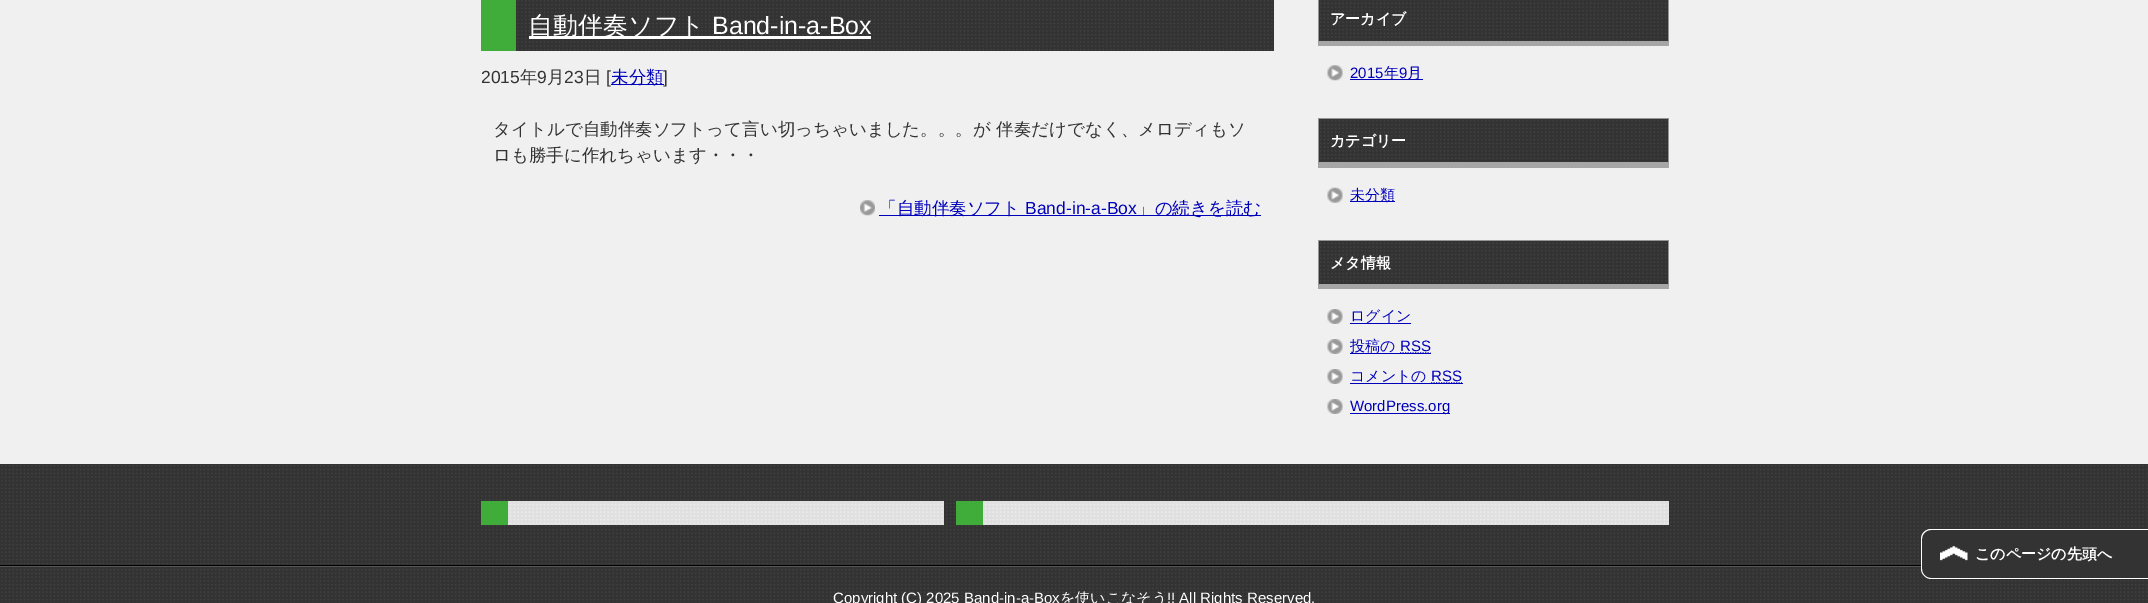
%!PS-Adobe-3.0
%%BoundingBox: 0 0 2148 603
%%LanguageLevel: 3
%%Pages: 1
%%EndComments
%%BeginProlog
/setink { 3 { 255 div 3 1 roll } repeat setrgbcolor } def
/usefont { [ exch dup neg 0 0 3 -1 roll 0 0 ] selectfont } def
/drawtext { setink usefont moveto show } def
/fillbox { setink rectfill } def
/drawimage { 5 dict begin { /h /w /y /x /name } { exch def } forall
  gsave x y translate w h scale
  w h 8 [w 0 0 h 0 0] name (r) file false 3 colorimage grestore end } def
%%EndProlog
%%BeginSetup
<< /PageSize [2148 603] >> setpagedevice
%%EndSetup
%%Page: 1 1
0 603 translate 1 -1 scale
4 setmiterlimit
0 0 2148 603 240 240 240 fillbox
516 0 758 51 51 51 51 fillbox
(assets/img1.rgb) 517 0 756 51 drawimage
481 0 35 51 64 173 59 fillbox
529 36 342 3 255 255 255 fillbox
(自動伴奏ソフト) 528 34 /WenQuanYiZenHei-Medium 25 255 255 255 drawtext
(Band-in-a-Box) 712 34 /LiberationSans-Regular 25 255 255 255 drawtext
(2015) 481 83 /LiberationSans-Regular 17.5 51 51 51 drawtext
(年) 520 83 /WenQuanYiZenHei-Medium 17.5 51 51 51 drawtext
(9) 537 83 /LiberationSans-Regular 17.5 51 51 51 drawtext
(月) 547 83 /WenQuanYiZenHei-Medium 17.5 51 51 51 drawtext
(23) 564 83 /LiberationSans-Regular 17.5 51 51 51 drawtext
(日) 584 83 /WenQuanYiZenHei-Medium 17.5 51 51 51 drawtext
([) 606 83 /LiberationSans-Regular 17.5 51 51 51 drawtext
611 84 53 1 0 0 187 fillbox
(未分類) 611 83 /WenQuanYiZenHei-Medium 17.5 0 0 187 drawtext
(]) 663 83 /LiberationSans-Regular 17.5 51 51 51 drawtext
(タイトルで自動伴奏ソフトって言い切っちゃいました。。。が 伴奏だけでなく、メロディもソ) 493 135 /WenQuanYiZenHei-Medium 17.5 51 51 51 drawtext
(ロも勝手に作れちゃいます・・・) 493 161 /WenQuanYiZenHei-Medium 17.5 51 51 51 drawtext
(assets/img2.rgb) 860 200 15 16 drawimage
879 215 382 1 0 0 187 fillbox
(「自動伴奏ソフト) 879 214 /WenQuanYiZenHei-Medium 17.5 0 0 187 drawtext
(Band-in-a-Box) 1025 214 /LiberationSans-Regular 17.5 0 0 187 drawtext
(」の続きを読む) 1137 214 /WenQuanYiZenHei-Medium 17.5 0 0 187 drawtext
1319 0 349 41 51 51 51 fillbox
(assets/img3.rgb) 1320 0 347 41 drawimage
149 149 149 setink
1669 -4 moveto 1669 46 lineto 1668 41 lineto 1668 -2 lineto closepath fill
166 166 166 setink
1669 46 moveto 1318 46 lineto 1319 41 lineto 1668 41 lineto closepath fill
149 149 149 setink
1318 46 moveto 1318 -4 lineto 1319 -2 lineto 1319 41 lineto closepath fill
(アーカイブ) 1330 24 /WenQuanYiZenHei-Bold 15 255 255 255 drawtext
(assets/img4.rgb) 1327 65 16 16 drawimage
(2015) 1350 78 /LiberationSans-Regular 15 0 0 187 drawtext
1350 79 73 1 0 0 187 fillbox
(年) 1384 78 /WenQuanYiZenHei-Medium 15 0 0 187 drawtext
(9) 1399 78 /LiberationSans-Regular 15 0 0 187 drawtext
(月) 1407 78 /WenQuanYiZenHei-Medium 15 0 0 187 drawtext
1319 119 349 43 51 51 51 fillbox
(assets/img5.rgb) 1320 120 347 42 drawimage
1318 118 351 1 149 149 149 fillbox
1669 118 moveto 1669 168 lineto 1668 162 lineto 1668 119 lineto closepath fill
166 166 166 setink
1669 168 moveto 1318 168 lineto 1319 162 lineto 1668 162 lineto closepath fill
149 149 149 setink
1318 168 moveto 1318 118 lineto 1319 119 lineto 1319 162 lineto closepath fill
(カテゴリー) 1330 146 /WenQuanYiZenHei-Bold 15 255 255 255 drawtext
(assets/img6.rgb) 1327 187 16 16 drawimage
1350 201 45 1 0 0 187 fillbox
(未分類) 1350 200 /WenQuanYiZenHei-Medium 15 0 0 187 drawtext
1319 241 349 43 51 51 51 fillbox
(assets/img7.rgb) 1320 242 347 40 drawimage
1318 240 351 1 149 149 149 fillbox
1669 240 moveto 1669 289 lineto 1668 284 lineto 1668 241 lineto closepath fill
166 166 166 setink
1669 289 moveto 1318 289 lineto 1319 284 lineto 1668 284 lineto closepath fill
149 149 149 setink
1318 289 moveto 1318 240 lineto 1319 241 lineto 1319 284 lineto closepath fill
(メタ情報) 1330 268 /WenQuanYiZenHei-Bold 15 255 255 255 drawtext
(assets/img8.rgb) 1327 309 16 15 drawimage
(ログイン) 1350 321 /WenQuanYiZenHei-Medium 15 0 0 187 drawtext
1350 323 61 1 0 0 187 fillbox
(assets/img8.rgb) 1327 339 16 15 drawimage
1350 353 50 1 0 0 187 fillbox
(投稿の) 1350 351 /WenQuanYiZenHei-Medium 15 0 0 187 drawtext
(RSS) 1400 351 /LiberationSans-Regular 15 0 0 187 drawtext
1.2 setlinewidth
[1.25 1.25] 0 setdash
1400 353 moveto 1430.5 353 lineto stroke
1400 353 31 1 0 0 187 fillbox
(assets/img8.rgb) 1327 369 16 15 drawimage
(コメントの) 1350 381 /WenQuanYiZenHei-Medium 15 0 0 187 drawtext
1350 383 81 1 0 0 187 fillbox
(RSS) 1431 381 /LiberationSans-Regular 15 0 0 187 drawtext
1431 383 moveto 1462 383 lineto stroke
1431 383 32 1 0 0 187 fillbox
(assets/img8.rgb) 1327 399 16 15 drawimage
1350 413 100 1 0 0 187 fillbox
(WordPress.org) 1350 411 /LiberationSans-Regular 15 0 0 187 drawtext
0 464 2148 101 51 51 51 fillbox
(assets/img9.rgb) 1 465 2147 99 drawimage
0 565 1921 1 0 0 0 fillbox
508 501 436 24 224 224 224 fillbox
(assets/img10.rgb) 509 501 434 23 drawimage
481 501 27 24 64 173 59 fillbox
983 501 686 24 224 224 224 fillbox
(assets/img11.rgb) 984 501 685 23 drawimage
956 501 27 24 64 173 59 fillbox
0 567 2148 36 51 51 51 fillbox
(assets/img12.rgb) 1 569 2147 34 drawimage
0 566 1921 1 85 85 85 fillbox
(Copyright \(C\) 2025 Band-in-a-Box) 833 603 /LiberationSans-Regular 15 255 255 255 drawtext
(を使いこなそう) 1060 603 /WenQuanYiZenHei-Medium 15 255 255 255 drawtext
(!! All Rights Reserved.) 1167 603 /LiberationSans-Regular 15 255 255 255 drawtext
51 51 51 setink
1931 529 moveto 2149 529 lineto 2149 579 lineto 1931 579 lineto 1925.5 579 1921 574.5 1921 569 curveto 1921 539 lineto 1921 533.5 1925.5 529 1931 529 curveto closepath fill
(assets/img13.rgb) 1940 546 28 15 drawimage
255 255 255 setink
1931 529 moveto 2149 529 lineto 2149 579 lineto 1931 579 lineto 1926 579 1921 574 1921 569 curveto 1921 539 lineto 1921 533 1926 529 1931 529 curveto closepath 1931 530 moveto 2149 530 lineto 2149 578 lineto 1931 578 lineto 1926 578 1922 574 1922 569 curveto 1922 539 lineto 1922 534 1926 530 1931 530 curveto closepath eofill
(このページの先頭へ) 1975 559 /WenQuanYiZenHei-Bold 15 255 255 255 drawtext
showpage
%%EOF
